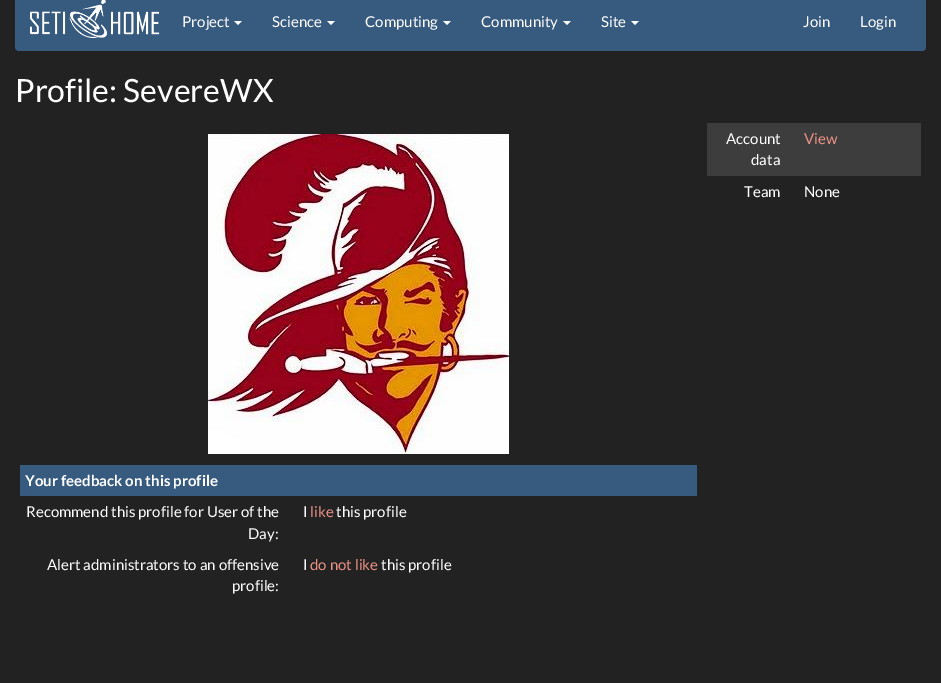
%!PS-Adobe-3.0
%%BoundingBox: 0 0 941 683
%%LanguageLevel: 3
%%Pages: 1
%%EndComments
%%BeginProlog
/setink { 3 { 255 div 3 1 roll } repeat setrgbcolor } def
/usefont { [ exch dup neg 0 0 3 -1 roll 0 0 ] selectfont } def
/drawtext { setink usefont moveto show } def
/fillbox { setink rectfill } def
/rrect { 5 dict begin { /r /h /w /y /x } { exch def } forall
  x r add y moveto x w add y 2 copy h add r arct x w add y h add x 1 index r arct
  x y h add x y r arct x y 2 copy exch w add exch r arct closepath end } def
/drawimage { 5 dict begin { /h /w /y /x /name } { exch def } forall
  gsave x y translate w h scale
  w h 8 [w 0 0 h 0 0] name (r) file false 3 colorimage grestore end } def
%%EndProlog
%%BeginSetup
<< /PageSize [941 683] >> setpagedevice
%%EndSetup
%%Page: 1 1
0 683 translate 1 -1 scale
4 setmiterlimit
0 0 941 683 34 34 34 fillbox
55 90 127 setink
15 -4 911 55 4 rrect fill
(assets/img1.rgb) 30 0 130 38 drawimage
(Project) 182 27 /Lato-Regular 15 255 255 255 drawtext
234 21 moveto 242 21 lineto 238 25 lineto closepath fill
(Science) 272 27 /Lato-Regular 15 255 255 255 drawtext
327 21 moveto 335 21 lineto 331 25 lineto closepath fill
(Computing) 365 27 /Lato-Regular 15 255 255 255 drawtext
443 21 moveto 451 21 lineto 447 25 lineto closepath fill
(Community) 481 27 /Lato-Regular 15 255 255 255 drawtext
563 21 moveto 571 21 lineto 567 25 lineto closepath fill
(Site) 601 27 /Lato-Regular 15 255 255 255 drawtext
631 21 moveto 639 21 lineto 635 25 lineto closepath fill
(Join) 803 27 /Lato-Regular 15 255 255 255 drawtext
(Login) 860 27 /Lato-Regular 15 255 255 255 drawtext
(Profile: SevereWX) 15 102 /Lato-Regular 32 255 255 255 drawtext
707 123 214 53 61 61 61 fillbox
(Account) 726 144 /Lato-Regular 15 255 255 255 drawtext
(data) 751 165 /Lato-Regular 15 255 255 255 drawtext
(View) 804 144 /Lato-Regular 15 234 145 133 drawtext
(Team) 744 197 /Lato-Regular 15 255 255 255 drawtext
(None) 804 197 /Lato-Regular 15 255 255 255 drawtext
(assets/img2.rgb) 208 134 301 320 drawimage
20 465 677 31 55 90 127 fillbox
(Your feedback on this profile) 25 486 /Lato-Bold 15 255 255 255 drawtext
(Recommend this profile for User of the) 26 517 /Lato-Regular 15 255 255 255 drawtext
(Day:) 248 539 /Lato-Regular 15 255 255 255 drawtext
(I) 303 517 /Lato-Regular 15 255 255 255 drawtext
(like) 310 517 /Lato-Regular 15 234 145 133 drawtext
(this profile) 336 517 /Lato-Regular 15 255 255 255 drawtext
(Alert administrators to an offensive) 47 570 /Lato-Regular 15 255 255 255 drawtext
(profile:) 232 591 /Lato-Regular 15 255 255 255 drawtext
(I) 303 570 /Lato-Regular 15 255 255 255 drawtext
(do not like) 310 570 /Lato-Regular 15 234 145 133 drawtext
(this profile) 381 570 /Lato-Regular 15 255 255 255 drawtext
showpage
%%EOF
